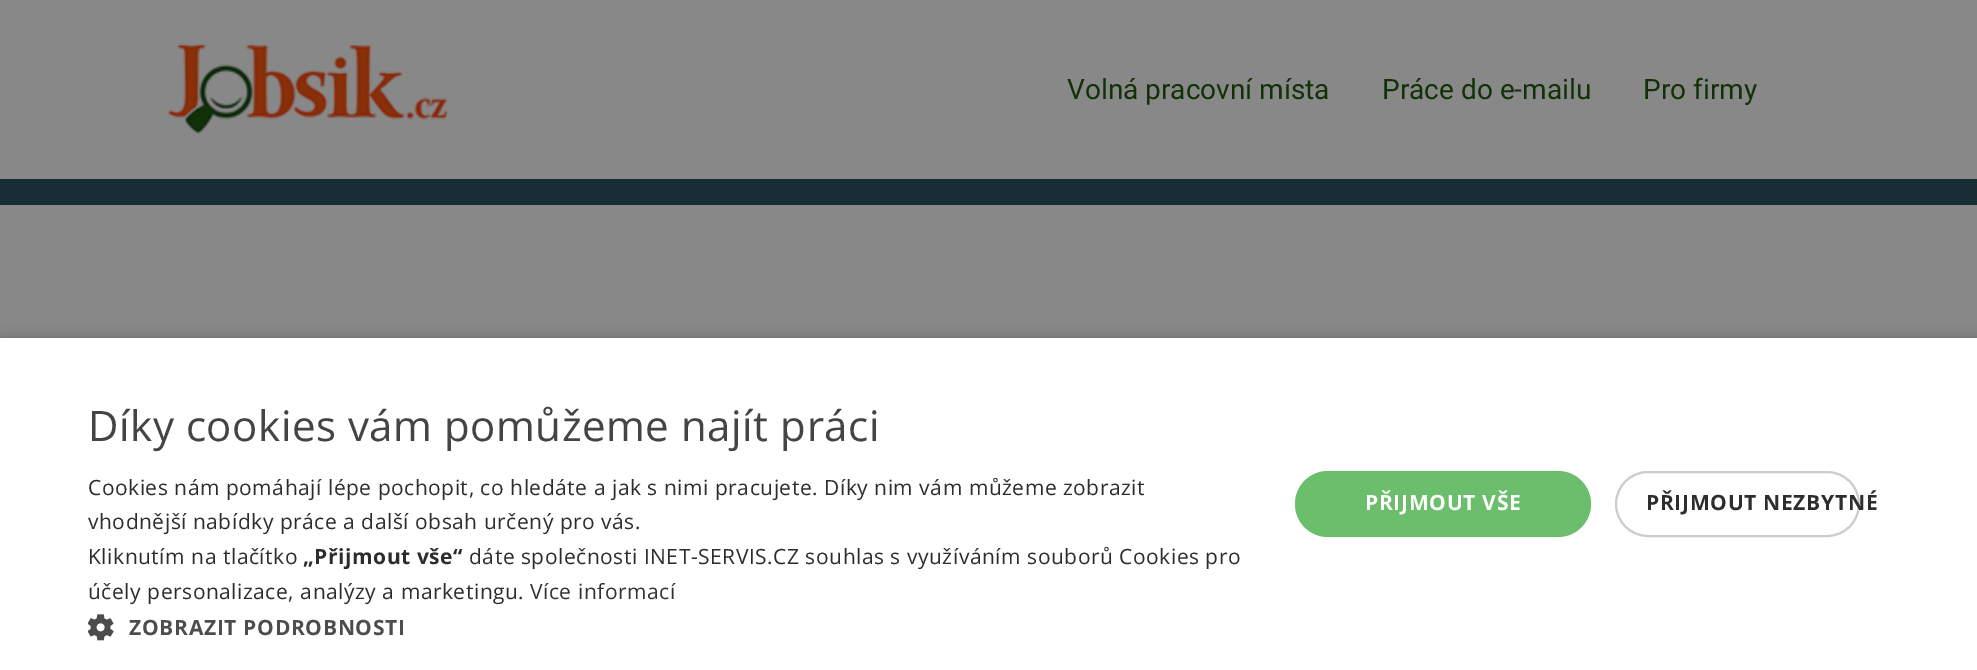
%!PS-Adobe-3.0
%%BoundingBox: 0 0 1977 670
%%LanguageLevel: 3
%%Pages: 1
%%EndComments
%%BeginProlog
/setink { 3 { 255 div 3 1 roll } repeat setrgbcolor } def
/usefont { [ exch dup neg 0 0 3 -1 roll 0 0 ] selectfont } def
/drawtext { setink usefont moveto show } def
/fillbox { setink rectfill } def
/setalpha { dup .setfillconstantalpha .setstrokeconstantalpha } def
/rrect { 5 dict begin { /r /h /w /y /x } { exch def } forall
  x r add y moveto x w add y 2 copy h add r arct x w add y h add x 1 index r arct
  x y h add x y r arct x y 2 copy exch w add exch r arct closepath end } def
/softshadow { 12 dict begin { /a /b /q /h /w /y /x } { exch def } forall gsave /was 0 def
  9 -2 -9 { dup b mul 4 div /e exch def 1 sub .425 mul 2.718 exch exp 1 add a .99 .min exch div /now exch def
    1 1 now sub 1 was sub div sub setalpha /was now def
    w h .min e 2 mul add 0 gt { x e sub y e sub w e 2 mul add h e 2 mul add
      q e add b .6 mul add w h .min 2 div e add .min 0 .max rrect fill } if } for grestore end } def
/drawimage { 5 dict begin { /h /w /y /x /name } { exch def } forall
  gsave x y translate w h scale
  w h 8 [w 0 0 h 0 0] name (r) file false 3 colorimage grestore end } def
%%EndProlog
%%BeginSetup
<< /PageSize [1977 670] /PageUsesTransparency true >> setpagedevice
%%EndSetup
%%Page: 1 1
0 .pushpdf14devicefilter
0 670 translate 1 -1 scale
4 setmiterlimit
0 0 1977 670 136 136 136 fillbox
(assets/img1.rgb) 167 43 282 91 drawimage
(Volná pracovní místa) 1067 99 /Roboto-Regular 28 19 49 9 drawtext
(Práce do e-mailu) 1382 99 /Roboto-Regular 28 19 49 9 drawtext
(Pro firmy) 1643 99 /Roboto-Regular 28 19 49 9 drawtext
0 179 1977 26 25 45 52 fillbox
0 0 0 setink
2 341 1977 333 0 7 0.35 softshadow
0 338 1977 332 255 255 255 fillbox
/OpenSans-Regular 42 usefont
68 68 68 setink
88 441 moveto 0.53 0 (Díky cookies vám pomůžeme najít práci) ashow
/OpenSans-Regular 21 usefont
45 45 45 setink
88 495 moveto 0.53 0 (Cookies nám pomáhají lépe pochopit, co hledáte a jak s nimi pracujete. Díky nim vám můžeme zobrazit) ashow
88 529 moveto 0.53 0 (vhodnější nabídky práce a další obsah určený pro vás.) ashow
88 564 moveto 0.53 0 (Kliknutím na tlačítko) ashow
/OpenSans-Bold 21 usefont
303 564 moveto 0.53 0 („Přijmout vše“) ashow
/OpenSans-Regular 21 usefont
469 564 moveto 0.53 0 (dáte společnosti INET-SERVIS.CZ souhlas s využíváním souborů Cookies pro) ashow
88 599 moveto 0.53 0 (účely personalizace, analýzy a marketingu.) ashow
51 51 51 setink
530 599 moveto 0.53 0 (Více informací) ashow
(assets/img2.rgb) 88 614 26 27 drawimage
/OpenSans-Bold 21 usefont
77 77 77 setink
129 635 moveto 0.7 0 (ZOBRAZIT PODROBNOSTI) ashow
107 190 107 setink
1295 471 296 66 33 rrect fill
255 255 255 setink
1365 510 moveto 0.7 0 (PŘIJMOUT VŠE) ashow
204 204 204 setink
2 setlinewidth
1616 472 243 64 32 rrect stroke
45 45 45 setink
1646 510 moveto 0.7 0 (PŘIJMOUT NEZBYTNÉ) ashow
.poppdf14devicefilter showpage
%%EOF
